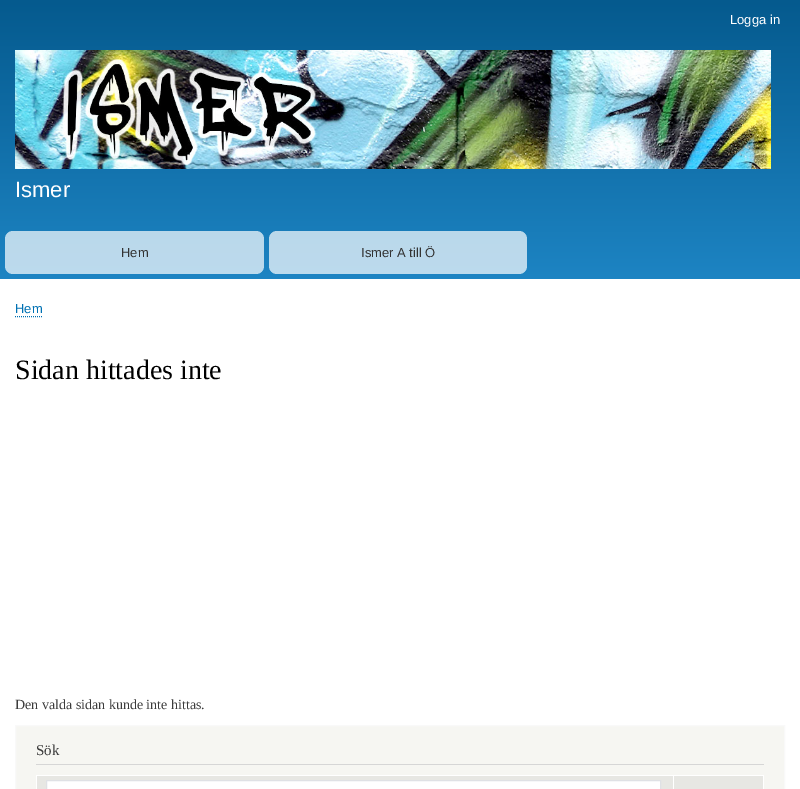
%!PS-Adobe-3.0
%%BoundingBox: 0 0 800 789
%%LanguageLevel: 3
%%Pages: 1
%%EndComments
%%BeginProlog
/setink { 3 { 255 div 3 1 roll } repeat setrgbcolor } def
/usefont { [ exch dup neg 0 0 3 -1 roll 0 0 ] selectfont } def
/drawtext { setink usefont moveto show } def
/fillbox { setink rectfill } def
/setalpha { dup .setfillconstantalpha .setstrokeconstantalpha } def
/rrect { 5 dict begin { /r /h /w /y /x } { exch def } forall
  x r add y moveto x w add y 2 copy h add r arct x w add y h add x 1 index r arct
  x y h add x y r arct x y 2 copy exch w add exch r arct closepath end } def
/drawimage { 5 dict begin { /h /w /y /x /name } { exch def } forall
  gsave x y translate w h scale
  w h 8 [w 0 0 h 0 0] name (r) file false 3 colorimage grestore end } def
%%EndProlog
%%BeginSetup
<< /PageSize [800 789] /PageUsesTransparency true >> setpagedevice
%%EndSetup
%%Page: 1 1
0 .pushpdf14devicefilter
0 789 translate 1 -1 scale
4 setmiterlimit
0 0 800 789 255 255 255 fillbox
gsave 0 0 moveto 800 0 lineto 800 279 lineto 0 279 lineto closepath clip newpath
<< /ShadingType 2 /ColorSpace /DeviceRGB /Coords [400 0 400 279] /Extend [true true] /Function << /FunctionType 2 /Domain [0 1] /C0 [0.02 0.353 0.557] /C1 [0.114 0.518 0.765] /N 1 >> >> shfill grestore
(Logga in) 730 24 /LiberationSans-Regular 13 255 254 255 drawtext
(assets/img1.rgb) 15 50 756 119 drawimage
(Ismer) 15 197 /LiberationSans-Regular 22 255 254 255 drawtext
0.7 setalpha
255 255 255 setink
5 231 259 43 8 rrect fill
1 setalpha
(Hem) 121 257 /LiberationSans-Regular 13 51 51 51 drawtext
0.7 setalpha
255 255 255 setink
269 231 258 43 8 rrect fill
1 setalpha
(Ismer A till Ö) 361 257 /LiberationSans-Regular 13 51 51 51 drawtext
(Hem) 15 313 /LiberationSans-Regular 13 0 113 179 drawtext
[1 1] 0 setdash
15 316.5 moveto 42 316.5 lineto stroke
(Sidan hittades inte) 15 379 /LiberationSerif-Regular 28 0 0 0 drawtext
(Den valda sidan kunde inte hittas.) 15 709 /LiberationSerif-Regular 14 59 59 59 drawtext
246 246 242 setink
15.5 725.5 moveto 784.5 725.5 lineto 784.5 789.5 lineto 15.5 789.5 lineto closepath gsave fill grestore
249 249 249 setink
[] 0 setdash
stroke
36 764 728 1 214 214 214 fillbox
(Sök) 36 755 /LiberationSerif-Regular 15 59 59 59 drawtext
37 776 726 13 231 231 227 fillbox
673 775 91 1 255 255 255 fillbox
673 775 1 14 255 255 255 fillbox
36 775 638 1 255 255 255 fillbox
36 775 1 14 255 255 255 fillbox
46.5 780.5 moveto 660.5 780.5 lineto 660.5 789.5 lineto 46.5 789.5 lineto closepath gsave fill grestore
223 225 229 setink
stroke
763 775 1 14 255 255 255 fillbox
.poppdf14devicefilter showpage
%%EOF
